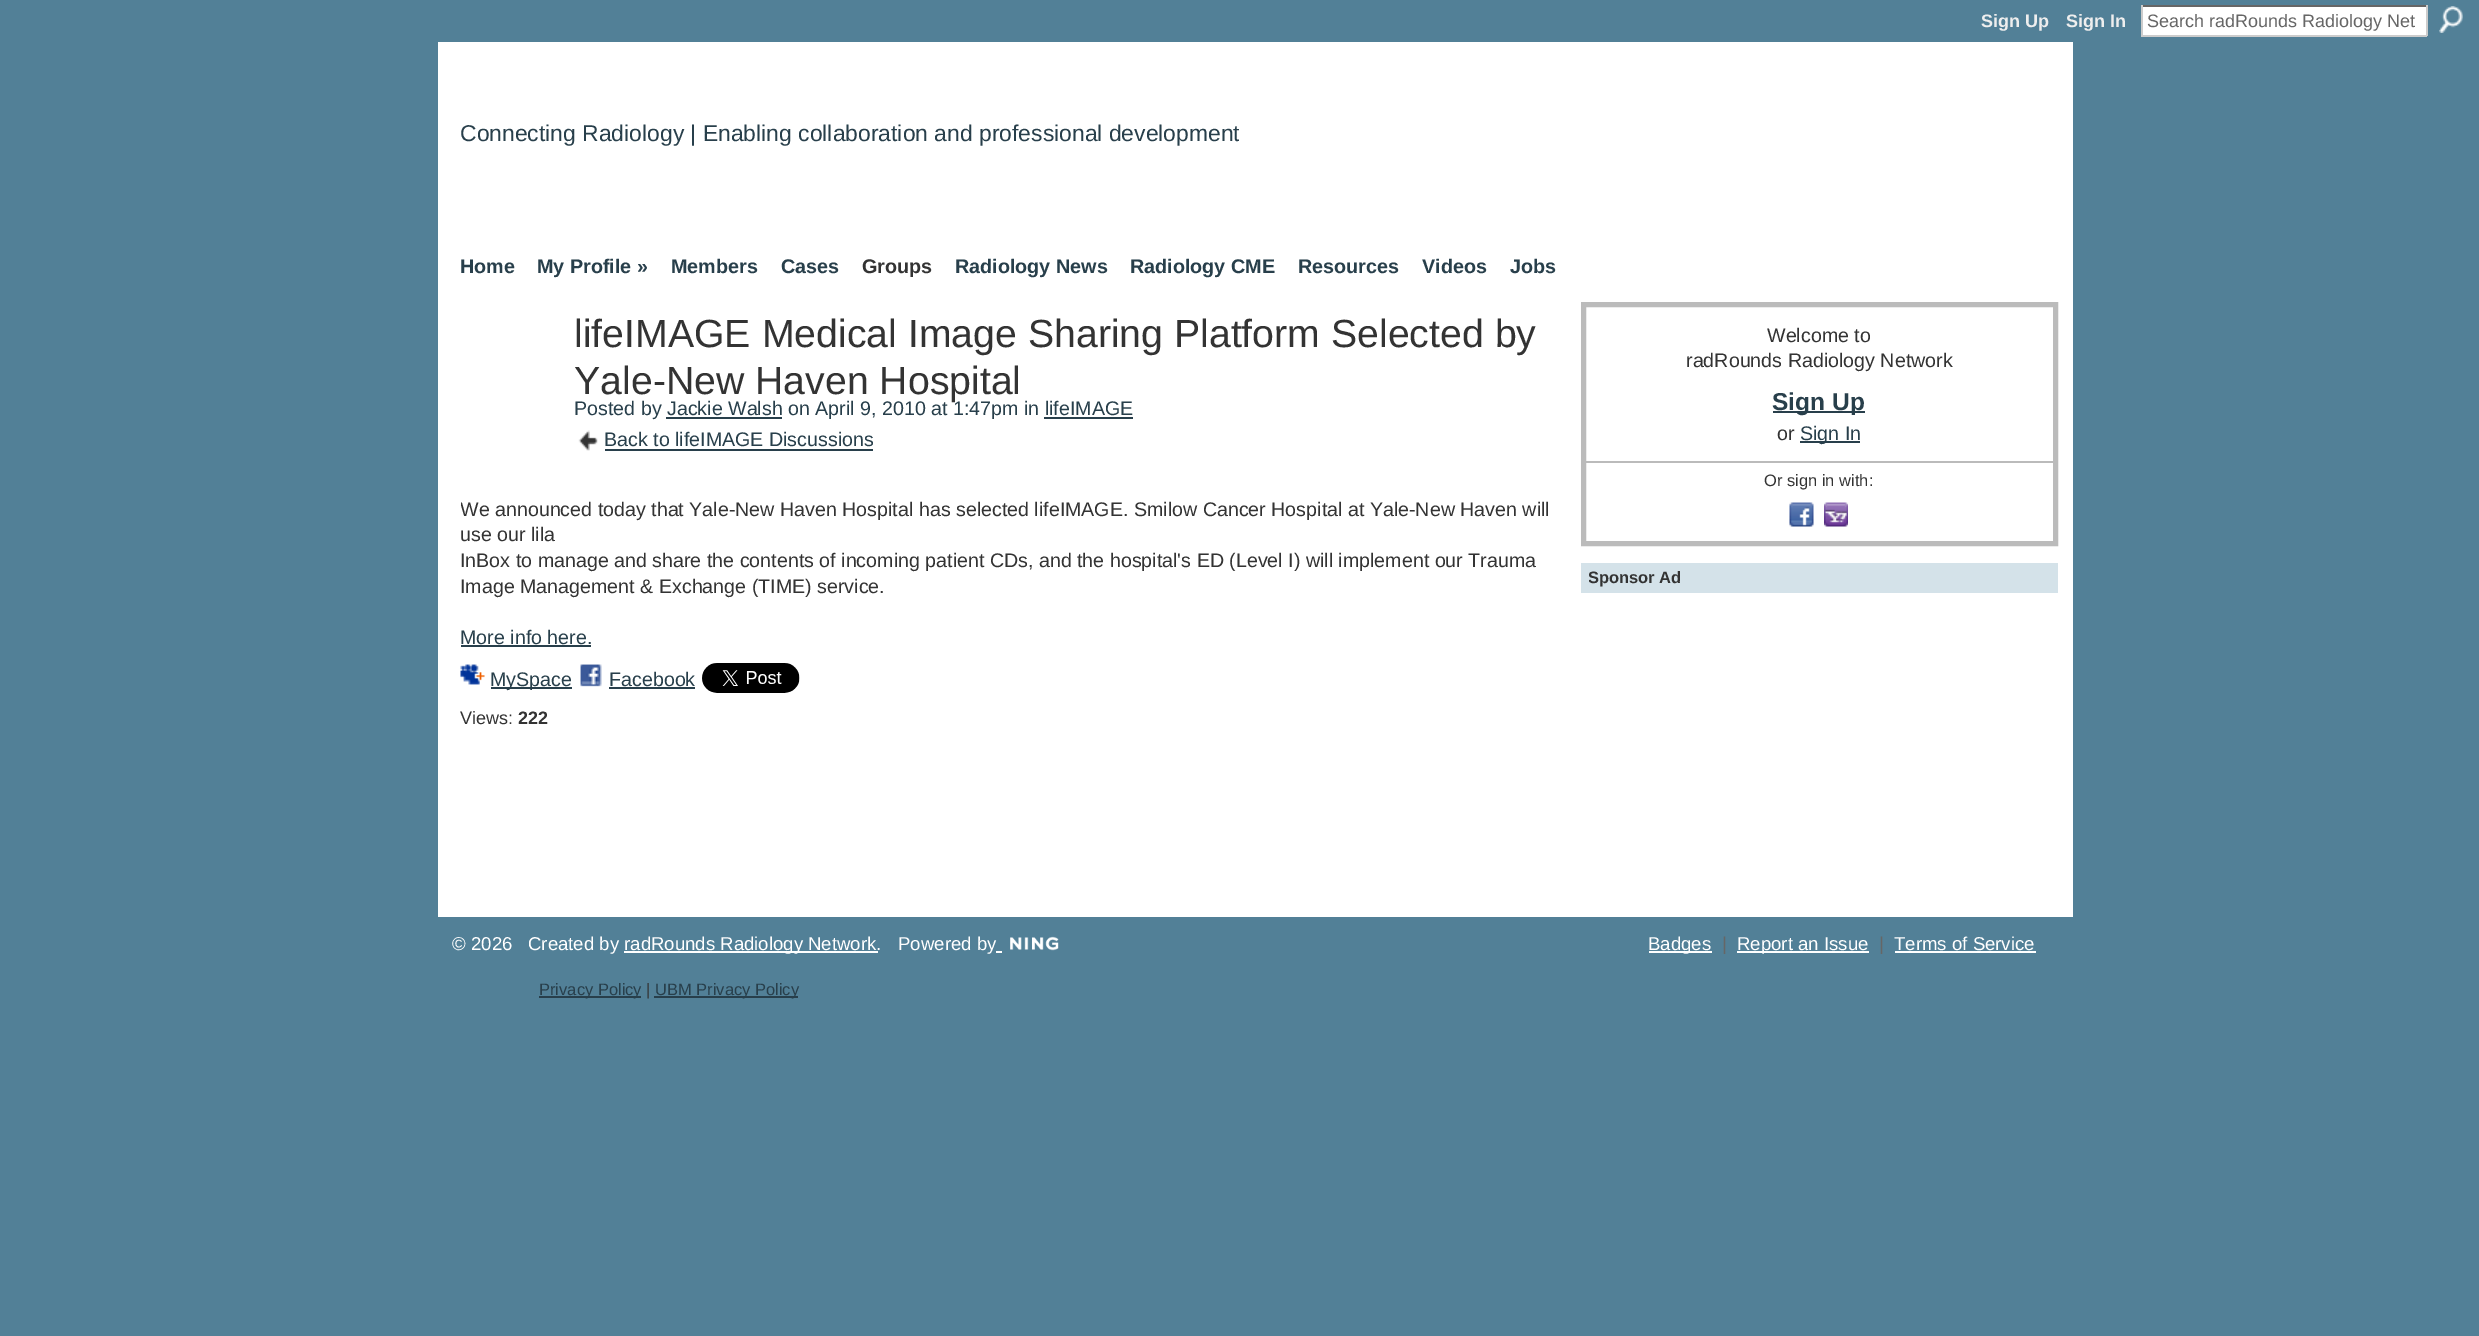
%!PS-Adobe-3.0
%%BoundingBox: 0 0 2479 1336
%%LanguageLevel: 3
%%Pages: 1
%%EndComments
%%BeginProlog
/setink { 3 { 255 div 3 1 roll } repeat setrgbcolor } def
/usefont { [ exch dup neg 0 0 3 -1 roll 0 0 ] selectfont } def
/drawtext { setink usefont moveto show } def
/fillbox { setink rectfill } def
/drawimage { 5 dict begin { /h /w /y /x /name } { exch def } forall
  gsave x y translate w h scale
  w h 8 [w 0 0 h 0 0] name (r) file false 3 colorimage grestore end } def
%%EndProlog
%%BeginSetup
<< /PageSize [2479 1336] >> setpagedevice
%%EndSetup
%%Page: 1 1
0 1336 translate 1 -1 scale
4 setmiterlimit
0 0 2479 1336 82 128 151 fillbox
(Sign Up) 1981 27 /LiberationSans-Bold 18 238 238 238 drawtext
(Sign In) 2066 27 /LiberationSans-Bold 18 238 238 238 drawtext
2143 7 283 28 255 255 255 fillbox
2141 5 286 2 102 102 102 fillbox
2426 5 2 31 204 204 204 fillbox
2141 35 286 2 204 204 204 fillbox
2141 5 2 31 204 204 204 fillbox
(Search radRounds Radiology Net) 2147 27 /LiberationSans-Regular 18 102 102 102 drawtext
(assets/img1.rgb) 2439 6 24 27 drawimage
438 42 1635 875 255 255 255 fillbox
gsave
438 45 801 120 rectclip
(Connecting Radiology | Enabling collaboration and professional development) 460 141 /LiberationSans-Regular 22.9 40 63 75 drawtext
grestore
(Home) 460 273 /LiberationSans-Bold 19.75 40 63 75 drawtext
(My Profile ») 537 273 /LiberationSans-Bold 19.75 40 63 75 drawtext
(Members) 671 273 /LiberationSans-Bold 19.75 40 63 75 drawtext
(Cases) 781 273 /LiberationSans-Bold 19.75 40 63 75 drawtext
(Groups) 862 273 /LiberationSans-Bold 19.75 51 51 51 drawtext
(Radiology News) 955 273 /LiberationSans-Bold 19.75 40 63 75 drawtext
(Radiology CME) 1130 273 /LiberationSans-Bold 19.75 40 63 75 drawtext
(Resources) 1298 273 /LiberationSans-Bold 19.75 40 63 75 drawtext
(Videos) 1422 273 /LiberationSans-Bold 19.75 40 63 75 drawtext
(Jobs) 1510 273 /LiberationSans-Bold 19.75 40 63 75 drawtext
(lifeIMAGE Medical Image Sharing Platform Selected by) 574 347 /LiberationSans-Regular 39.25 51 51 51 drawtext
(Yale-New Haven Hospital) 574 394 /LiberationSans-Regular 39.25 51 51 51 drawtext
(Posted by Jackie Walsh on April 9, 2010 at 1:47pm in lifeIMAGE) 574 415 /LiberationSans-Regular 19.65 40 63 75 drawtext
666 417 116 2 40 63 75 fillbox
1044 417 89 2 40 63 75 fillbox
(assets/img2.rgb) 578 430 20 21 drawimage
(Back to lifeIMAGE Discussions) 604 446 /LiberationSans-Regular 19.65 40 63 75 drawtext
605 449 268 2 40 63 75 fillbox
gsave
461 497 1105 153 rectclip
(We announced today that Yale-New Haven Hospital has selected lifeIMAGE. Smilow Cancer Hospital at Yale-New Haven will) 460 516 /LiberationSans-Regular 19.65 51 51 51 drawtext
grestore
(use our lila) 460 541 /LiberationSans-Regular 19.65 51 51 51 drawtext
(InBox to manage and share the contents of incoming patient CDs, and the hospital's ED \(Level I\) will implement our Trauma) 460 567 /LiberationSans-Regular 19.65 51 51 51 drawtext
(Image Management & Exchange \(TIME\) service.) 460 593 /LiberationSans-Regular 19.65 51 51 51 drawtext
(More info here.) 460 644 /LiberationSans-Regular 19.65 40 63 75 drawtext
461 645 130 2 40 63 75 fillbox
(assets/img3.rgb) 460 664 25 21 drawimage
491 687 81 2 40 63 75 fillbox
(MySpace) 490 686 /LiberationSans-Regular 19.65 40 63 75 drawtext
(assets/img4.rgb) 580 664 22 23 drawimage
(Facebook) 609 686 /LiberationSans-Regular 19.65 40 63 75 drawtext
609 687 86 2 40 63 75 fillbox
(assets/img5.rgb) 702 663 98 30 drawimage
(Views:) 460 724 /LiberationSans-Regular 18 51 51 51 drawtext
(222) 518 724 /LiberationSans-Bold 18 51 51 51 drawtext
187 187 187 setink
5 setlinewidth
1583.5 304.5 472 239 rectstroke
(Welcome to) 1767 342 /LiberationSans-Regular 19.65 51 51 51 drawtext
(radRounds Radiology Network) 1686 367 /LiberationSans-Regular 19.65 51 51 51 drawtext
1773 411 92 2 40 63 75 fillbox
(Sign Up) 1772 410 /LiberationSans-Bold 24.5 40 63 75 drawtext
(or) 1777 440 /LiberationSans-Regular 19.65 51 51 51 drawtext
1800 441 60 2 40 63 75 fillbox
(Sign In) 1800 440 /LiberationSans-Regular 19.65 40 63 75 drawtext
1586 461 468 2 187 187 187 fillbox
(Or sign in with:) 1764 486 /LiberationSans-Regular 16.5 51 51 51 drawtext
(assets/img6.rgb) 1789 502 25 25 drawimage
(assets/img7.rgb) 1824 502 24 25 drawimage
1581 563 477 30 212 226 233 fillbox
gsave
1589 567 91 21 rectclip
(Sponsor Ad) 1588 583 /LiberationSans-Bold 16.5 51 51 51 drawtext
grestore
(© 2026) 452 950 /LiberationSans-Regular 18.6 255 255 255 drawtext
(Created by) 528 950 /LiberationSans-Regular 18.6 255 255 255 drawtext
624 951 254 2 255 255 255 fillbox
(radRounds Radiology Network.) 624 950 /LiberationSans-Regular 18.6 255 255 255 drawtext
(Powered by) 898 950 /LiberationSans-Regular 18.6 255 255 255 drawtext
(assets/img8.rgb) 1010 936 49 15 drawimage
996 951 6 2 255 255 255 fillbox
1649 951 63 2 255 255 255 fillbox
(Badges) 1648 950 /LiberationSans-Regular 18.6 255 255 255 drawtext
(|) 1722 950 /LiberationSans-Regular 18.6 102 102 102 drawtext
1737 951 132 2 255 255 255 fillbox
(Report an Issue) 1737 950 /LiberationSans-Regular 18.6 255 255 255 drawtext
(|) 1879 950 /LiberationSans-Regular 18.6 102 102 102 drawtext
(Terms of Service) 1894 950 /LiberationSans-Regular 18.6 255 255 255 drawtext
1895 951 141 2 255 255 255 fillbox
539 996 102 2 40 63 75 fillbox
(Privacy Policy) 539 995 /LiberationSans-Regular 16.5 40 63 75 drawtext
(|) 646 995 /LiberationSans-Regular 16.5 51 51 51 drawtext
654 996 144 2 40 63 75 fillbox
(UBM Privacy Policy) 655 995 /LiberationSans-Regular 16.5 40 63 75 drawtext
showpage
%%EOF
